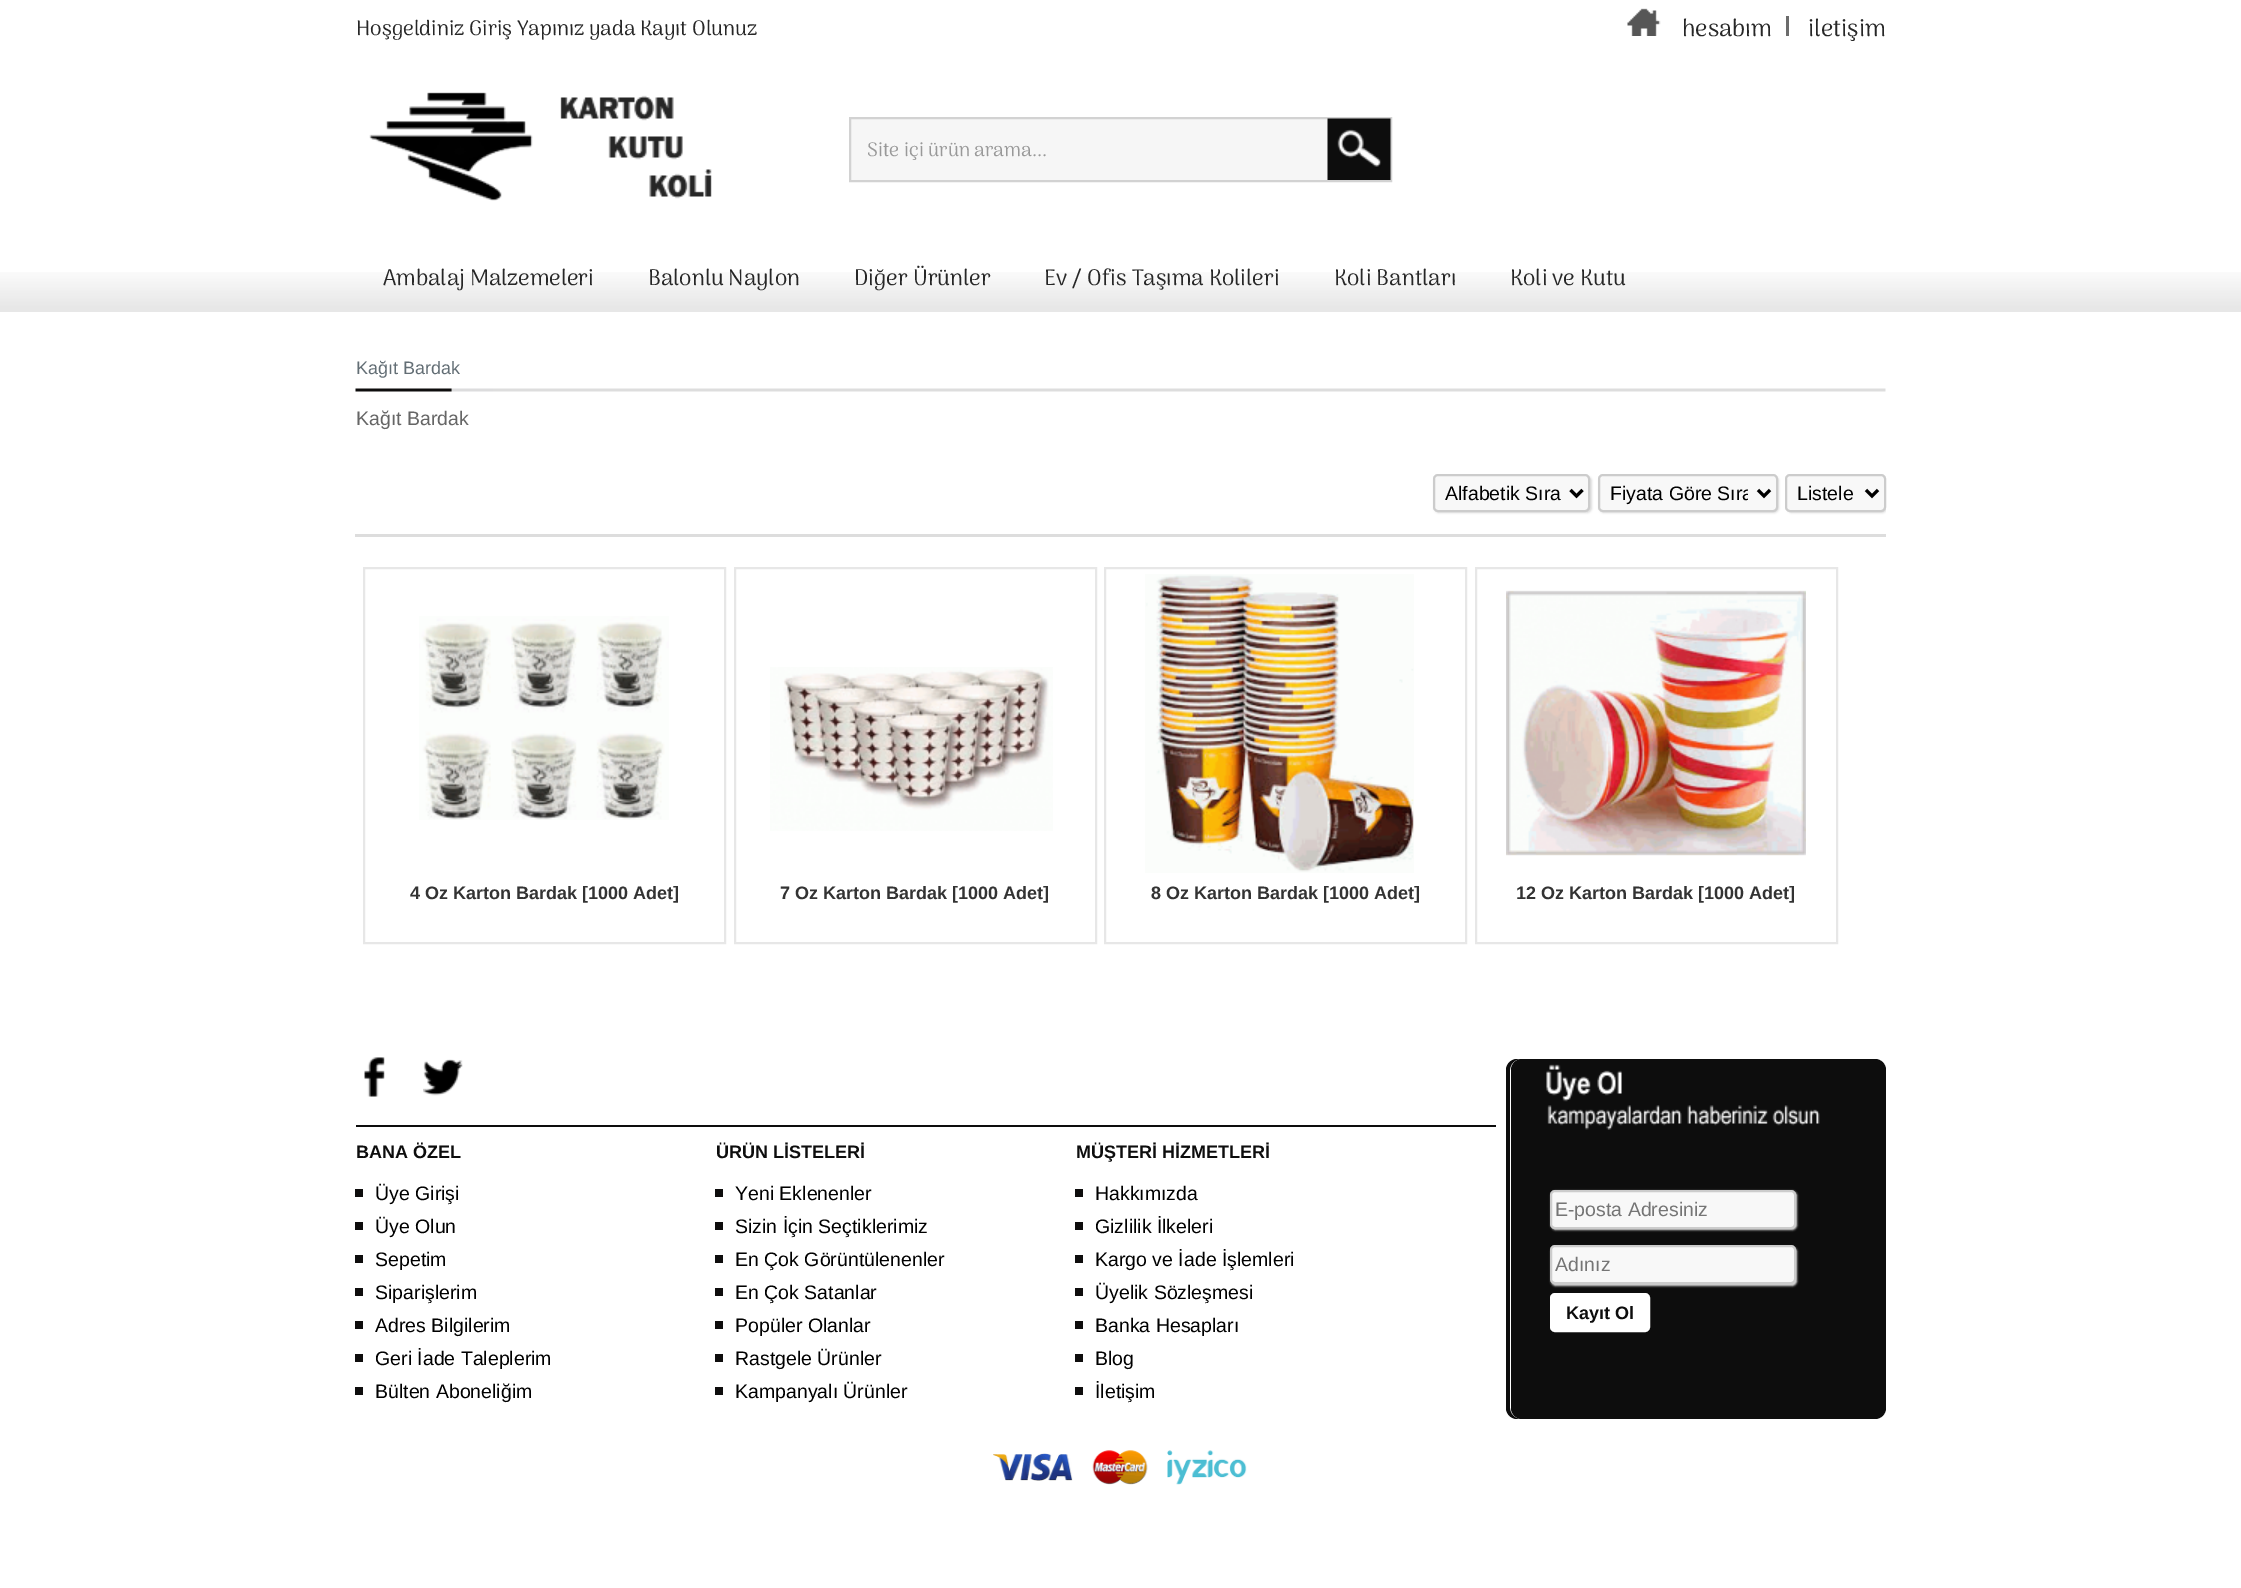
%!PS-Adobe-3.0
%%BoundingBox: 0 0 2241 1588
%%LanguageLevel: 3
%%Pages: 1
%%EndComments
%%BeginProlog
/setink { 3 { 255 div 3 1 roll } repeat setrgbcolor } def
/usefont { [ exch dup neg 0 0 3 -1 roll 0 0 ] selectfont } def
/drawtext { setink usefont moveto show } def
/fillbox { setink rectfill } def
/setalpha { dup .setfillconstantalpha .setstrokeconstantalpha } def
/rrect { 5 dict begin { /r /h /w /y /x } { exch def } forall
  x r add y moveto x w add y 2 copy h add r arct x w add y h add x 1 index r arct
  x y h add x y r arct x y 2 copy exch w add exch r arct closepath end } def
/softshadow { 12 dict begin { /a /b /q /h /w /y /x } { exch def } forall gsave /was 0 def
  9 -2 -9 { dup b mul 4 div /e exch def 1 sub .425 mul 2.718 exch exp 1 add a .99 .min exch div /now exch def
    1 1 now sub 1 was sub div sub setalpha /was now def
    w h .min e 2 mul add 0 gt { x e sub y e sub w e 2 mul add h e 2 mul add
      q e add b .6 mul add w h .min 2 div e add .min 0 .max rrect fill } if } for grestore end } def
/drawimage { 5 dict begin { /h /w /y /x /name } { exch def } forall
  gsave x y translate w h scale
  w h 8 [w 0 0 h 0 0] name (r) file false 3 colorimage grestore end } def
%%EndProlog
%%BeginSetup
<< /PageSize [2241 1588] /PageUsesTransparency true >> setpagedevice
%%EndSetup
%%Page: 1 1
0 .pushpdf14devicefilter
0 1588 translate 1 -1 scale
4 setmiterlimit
0 0 2241 1588 255 255 255 fillbox
(Hoşgeldiniz Giriş Yapınız yada Kayıt Olunuz) 356 35 /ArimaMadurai-Regular 21 39 39 39 drawtext
(assets/img1.rgb) 1627 8 34 28 drawimage
(hesabım) 1682 36 /ArimaMadurai-Regular 24 39 39 39 drawtext
1786 16 3 20 108 108 108 fillbox
(iletişim) 1808 36 /ArimaMadurai-Regular 24 39 39 39 drawtext
(assets/img2.rgb) 369 92 343 109 drawimage
851 119 477 61 246 246 246 fillbox
210 210 210 setink
2 setlinewidth
850 118 541 63 rectstroke
(Site içi ürün arama...) 867 156 /ArimaMadurai-Regular 19.5 153 153 153 drawtext
(assets/img3.rgb) 1327 118 64 62 drawimage
(assets/img4.rgb) 0 272 2241 40 drawimage
(Ambalaj Malzemeleri) 383 285 /ArimaMadurai-Regular 22.5 39 39 39 drawtext
(Balonlu Naylon) 648 285 /ArimaMadurai-Regular 22.5 39 39 39 drawtext
(Diğer Ürünler) 854 285 /ArimaMadurai-Regular 22.5 39 39 39 drawtext
(Ev / Ofis Taşıma Kolileri) 1044 285 /ArimaMadurai-Regular 22.5 39 39 39 drawtext
(Koli Bantları) 1334 285 /ArimaMadurai-Regular 22.5 39 39 39 drawtext
(Koli ve Kutu) 1510 285 /ArimaMadurai-Regular 22.5 39 39 39 drawtext
(assets/img5.rgb) 355 388 1531 4 drawimage
(Kağıt Bardak) 356 374 /LiberationSans-Regular 18 99 110 117 drawtext
(Kağıt Bardak) 356 425 /LiberationSans-Regular 19.5 102 102 102 drawtext
355 534 1531 3 221 221 221 fillbox
1434 476 158 37 5 1 1 softshadow
248 248 248 setink
1434 475 155 36 4 rrect gsave fill grestore
204 204 204 setink
stroke
0 0 0 setink
3 setlinewidth
1570.5 490 moveto 1576.5 496 lineto 1582.5 490 lineto stroke
(Alfabetik Sıra) 1445 500 /LiberationSans-Regular 19.5 0 0 0 drawtext
221 221 221 setink
1599 476 180 37 5 1 1 softshadow
248 248 248 setink
1599 475 178 36 4 rrect gsave fill grestore
204 204 204 setink
2 setlinewidth
stroke
0 0 0 setink
3 setlinewidth
1758 490 moveto 1764 496 lineto 1770 490 lineto stroke
gsave
1610 480 138 26 rectclip
(Fiyata Göre Sıra) 1610 500 /LiberationSans-Regular 19.5 0 0 0 drawtext
grestore
gsave
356 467 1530 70 rectclip
221 221 221 setink
1787 476 100 37 5 1 1 softshadow
grestore
248 248 248 setink
1786 475 99 36 4 rrect gsave fill grestore
204 204 204 setink
2 setlinewidth
stroke
0 0 0 setink
3 setlinewidth
1866 490 moveto 1872 496 lineto 1878 490 lineto stroke
(Listele) 1797 500 /LiberationSans-Regular 19.5 0 0 0 drawtext
231 231 231 setink
2 setlinewidth
364 568 361 375 rectstroke
(assets/img6.rgb) 419 616 250 204 drawimage
(4 Oz Karton Bardak [1000 Adet]) 410 899 /LiberationSans-Bold 18 51 51 51 drawtext
231 231 231 setink
735 568 361 375 rectstroke
(assets/img7.rgb) 770 667 283 164 drawimage
(7 Oz Karton Bardak [1000 Adet]) 780 899 /LiberationSans-Bold 18 51 51 51 drawtext
231 231 231 setink
1105 568 361 375 rectstroke
(assets/img8.rgb) 1145 574 269 299 drawimage
(8 Oz Karton Bardak [1000 Adet]) 1151 899 /LiberationSans-Bold 18 51 51 51 drawtext
231 231 231 setink
1476 568 361 375 rectstroke
(assets/img9.rgb) 1506 590 300 266 drawimage
(12 Oz Karton Bardak [1000 Adet]) 1516 899 /LiberationSans-Bold 18 51 51 51 drawtext
(assets/img10.rgb) 364 1057 21 40 drawimage
(assets/img11.rgb) 423 1059 40 37 drawimage
356 1125 1140 2 13 13 13 fillbox
(BANA ÖZEL) 356 1158 /LiberationSans-Bold 18 13 13 13 drawtext
355 1189 8 8 14 13 13 fillbox
(Üye Girişi) 375 1200 /LiberationSans-Regular 19.5 0 0 0 drawtext
355 1222 8 8 14 13 13 fillbox
(Üye Olun) 375 1233 /LiberationSans-Regular 19.5 0 0 0 drawtext
355 1255 8 8 14 13 13 fillbox
(Sepetim) 375 1266 /LiberationSans-Regular 19.5 0 0 0 drawtext
355 1288 8 8 14 13 13 fillbox
(Siparişlerim) 375 1299 /LiberationSans-Regular 19.5 0 0 0 drawtext
355 1321 8 8 14 13 13 fillbox
(Adres Bilgilerim) 375 1332 /LiberationSans-Regular 19.5 0 0 0 drawtext
355 1354 8 8 14 13 13 fillbox
(Geri İade Taleplerim) 375 1365 /LiberationSans-Regular 19.5 0 0 0 drawtext
355 1387 8 8 14 13 13 fillbox
(Bülten Aboneliğim) 375 1398 /LiberationSans-Regular 19.5 0 0 0 drawtext
(ÜRÜN LİSTELERİ) 716 1158 /LiberationSans-Bold 18 13 13 13 drawtext
715 1189 8 8 14 13 13 fillbox
(Yeni Eklenenler) 735 1200 /LiberationSans-Regular 19.5 0 0 0 drawtext
715 1222 8 8 14 13 13 fillbox
(Sizin İçin Seçtiklerimiz) 735 1233 /LiberationSans-Regular 19.5 0 0 0 drawtext
715 1255 8 8 14 13 13 fillbox
(En Çok Görüntülenenler) 735 1266 /LiberationSans-Regular 19.5 0 0 0 drawtext
715 1288 8 8 14 13 13 fillbox
(En Çok Satanlar) 735 1299 /LiberationSans-Regular 19.5 0 0 0 drawtext
715 1321 8 8 14 13 13 fillbox
(Popüler Olanlar) 735 1332 /LiberationSans-Regular 19.5 0 0 0 drawtext
715 1354 8 8 14 13 13 fillbox
(Rastgele Ürünler) 735 1365 /LiberationSans-Regular 19.5 0 0 0 drawtext
715 1387 8 8 14 13 13 fillbox
(Kampanyalı Ürünler) 735 1398 /LiberationSans-Regular 19.5 0 0 0 drawtext
(MÜŞTERİ HİZMETLERİ) 1076 1158 /LiberationSans-Bold 18 13 13 13 drawtext
1075 1189 8 8 14 13 13 fillbox
(Hakkımızda) 1095 1200 /LiberationSans-Regular 19.5 0 0 0 drawtext
1075 1222 8 8 14 13 13 fillbox
(Gizlilik İlkeleri) 1095 1233 /LiberationSans-Regular 19.5 0 0 0 drawtext
1075 1255 8 8 14 13 13 fillbox
(Kargo ve İade İşlemleri) 1095 1266 /LiberationSans-Regular 19.5 0 0 0 drawtext
1075 1288 8 8 14 13 13 fillbox
(Üyelik Sözleşmesi) 1095 1299 /LiberationSans-Regular 19.5 0 0 0 drawtext
1075 1321 8 8 14 13 13 fillbox
(Banka Hesapları) 1095 1332 /LiberationSans-Regular 19.5 0 0 0 drawtext
1075 1354 8 8 14 13 13 fillbox
(Blog) 1095 1365 /LiberationSans-Regular 19.5 0 0 0 drawtext
1075 1387 8 8 14 13 13 fillbox
(İletişim) 1095 1398 /LiberationSans-Regular 19.5 0 0 0 drawtext
13 13 13 setink
1517 1059 moveto 1511 1059 1506 1064 1506 1070 curveto 1506 1408 lineto 1506 1414 1511 1419 1517 1419 curveto 1521 1419 lineto 1515 1419 1510 1414 1510 1408 curveto 1510 1070 lineto 1510 1064 1515 1059 1521 1059 curveto closepath fill
1511 1059 375 360 11 rrect fill
(assets/img12.rgb) 1546 1064 274 66 drawimage
221 221 221 setink
1551 1191 246 39 5 1 1 softshadow
248 248 248 setink
1551 1191 244 37 4 rrect gsave fill grestore
204 204 204 setink
stroke
(E-posta Adresiniz) 1555 1216 /LiberationSans-Regular 19.5 117 117 117 drawtext
221 221 221 setink
1551 1247 246 39 5 1 1 softshadow
248 248 248 setink
1551 1246 244 37 4 rrect gsave fill grestore
204 204 204 setink
stroke
(Adınız) 1555 1271 /LiberationSans-Regular 19.5 117 117 117 drawtext
255 255 255 setink
1551 1294 98 37 4 rrect gsave fill grestore
stroke
(Kayıt Ol) 1566 1319 /LiberationSans-Bold 18 13 13 13 drawtext
(assets/img13.rgb) 993 1450 254 35 drawimage
.poppdf14devicefilter showpage
%%EOF
